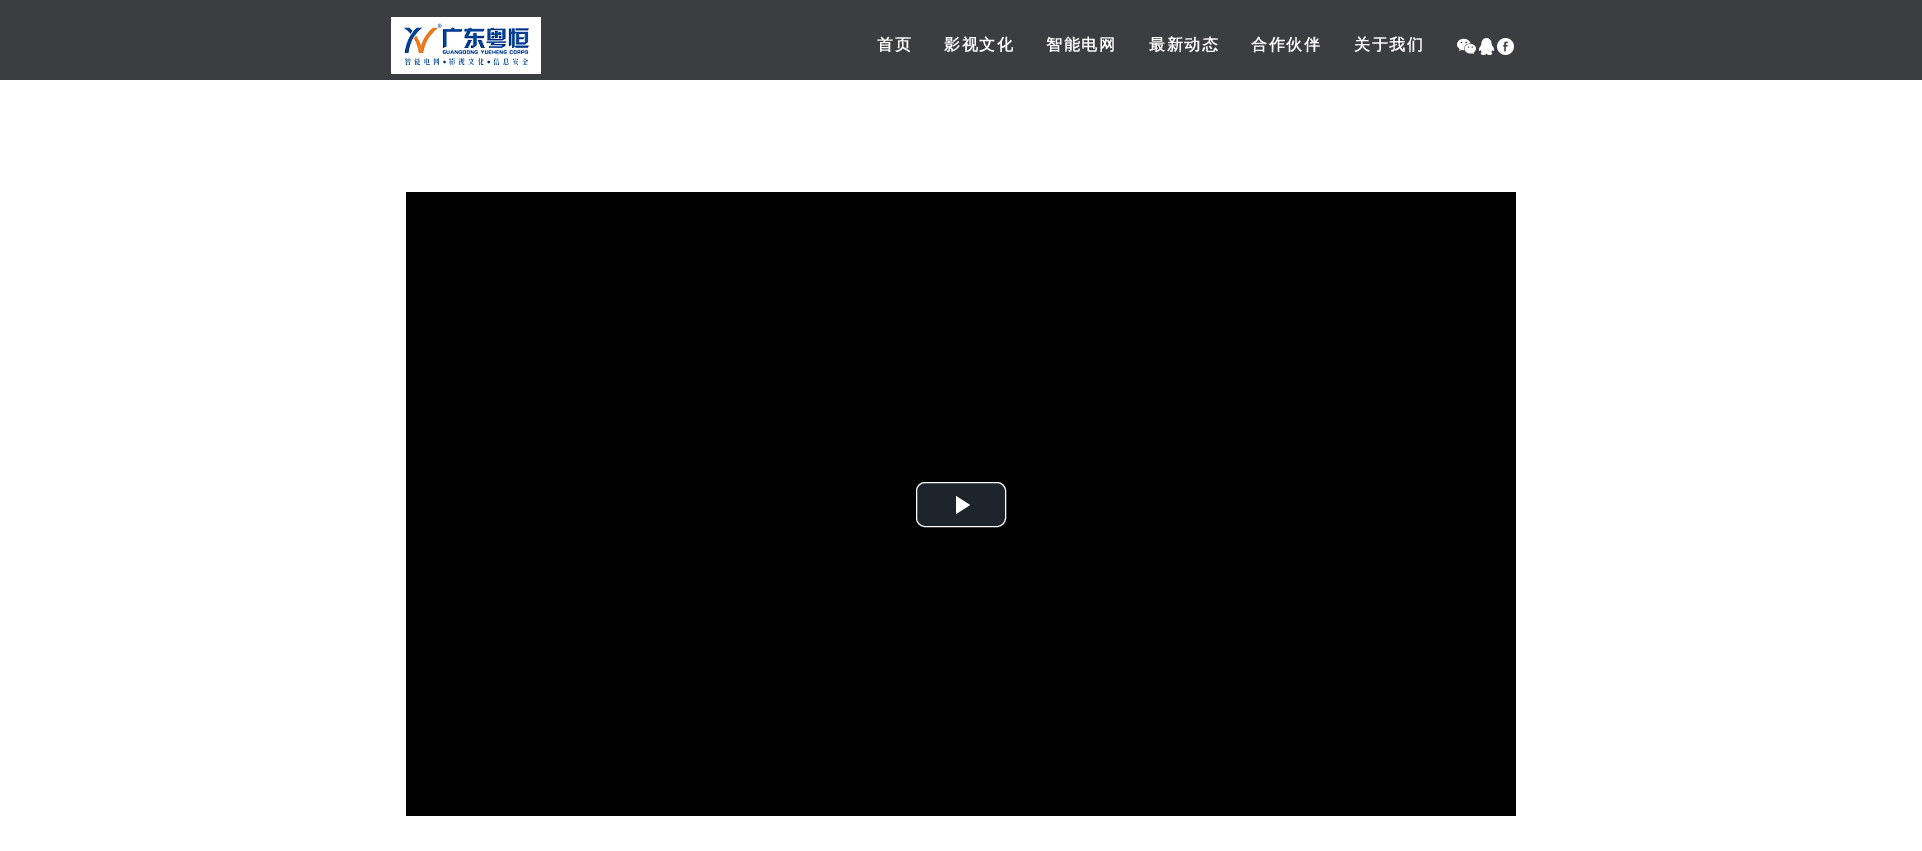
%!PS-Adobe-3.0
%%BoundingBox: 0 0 1922 851
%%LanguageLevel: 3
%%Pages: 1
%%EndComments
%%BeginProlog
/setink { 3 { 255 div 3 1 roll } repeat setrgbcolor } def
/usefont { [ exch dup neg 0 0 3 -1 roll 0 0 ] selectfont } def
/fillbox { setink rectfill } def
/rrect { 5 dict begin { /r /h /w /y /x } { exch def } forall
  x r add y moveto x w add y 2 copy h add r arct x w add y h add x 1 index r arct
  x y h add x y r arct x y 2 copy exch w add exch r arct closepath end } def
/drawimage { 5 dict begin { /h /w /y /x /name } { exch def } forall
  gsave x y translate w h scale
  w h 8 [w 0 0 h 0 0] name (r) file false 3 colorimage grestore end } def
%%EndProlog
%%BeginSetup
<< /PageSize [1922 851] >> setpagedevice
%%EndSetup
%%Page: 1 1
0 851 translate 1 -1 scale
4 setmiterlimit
0 0 1922 851 255 255 255 fillbox
0 0 1922 80 60 61 65 fillbox
(assets/img1.rgb) 391 17 150 57 drawimage
/WenQuanYiZenHei-Bold 16 usefont
255 255 255 setink
877 50 moveto 1.5 0 (首页) ashow
944 50 moveto 1.5 0 (影视文化) ashow
1046 50 moveto 1.5 0 (智能电网) ashow
1149 50 moveto 1.5 0 (最新动态) ashow
1251 50 moveto 1.5 0 (合作伙伴) ashow
1354 50 moveto 1.5 0 (关于我们) ashow
(assets/img2.rgb) 1457 38 19 17 drawimage
(assets/img3.rgb) 1478 38 17 17 drawimage
(assets/img4.rgb) 1497 38 17 17 drawimage
406 192 1110 624 0 0 0 fillbox
30 36 44 setink
916.5 482.5 89 44 8.5 rrect gsave fill grestore
255 255 255 setink
stroke
956 496 moveto 956 514 lineto 970 505 lineto closepath fill
showpage
%%EOF
